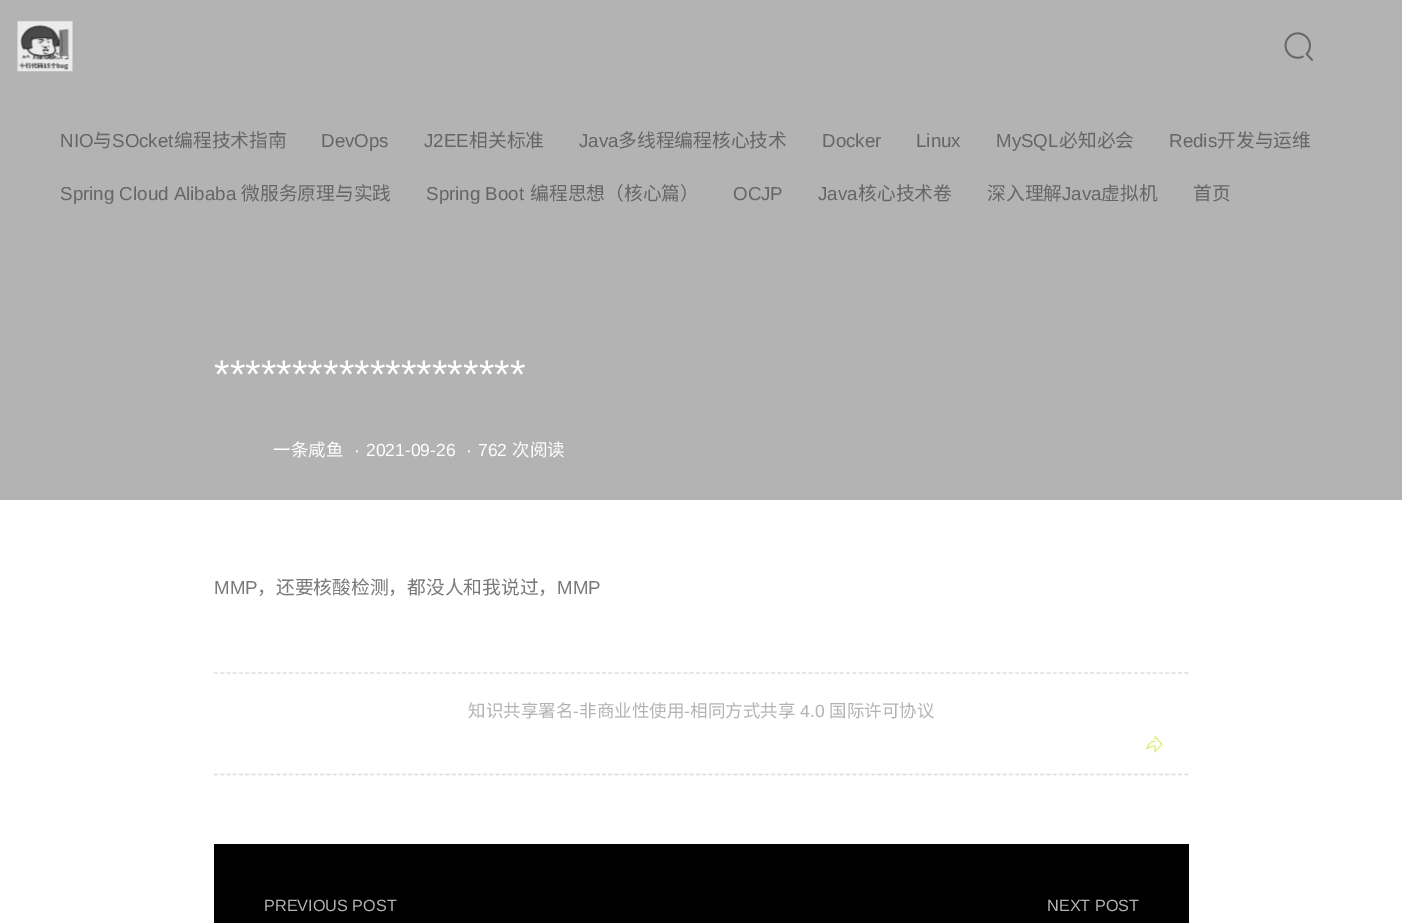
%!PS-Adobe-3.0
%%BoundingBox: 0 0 1402 923
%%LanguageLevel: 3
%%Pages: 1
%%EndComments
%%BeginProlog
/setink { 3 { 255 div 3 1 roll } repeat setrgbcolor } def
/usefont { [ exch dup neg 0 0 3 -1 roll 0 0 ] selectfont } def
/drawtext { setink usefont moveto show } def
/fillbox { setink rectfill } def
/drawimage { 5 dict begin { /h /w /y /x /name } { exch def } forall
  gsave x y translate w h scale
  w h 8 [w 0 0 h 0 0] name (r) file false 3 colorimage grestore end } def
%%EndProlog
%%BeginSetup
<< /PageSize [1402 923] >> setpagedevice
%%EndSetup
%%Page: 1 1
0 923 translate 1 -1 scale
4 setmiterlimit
0 0 1402 923 255 255 255 fillbox
0 0 1402 500 179 179 179 fillbox
(assets/img1.rgb) 17 21 56 51 drawimage
(assets/img2.rgb) 1284 32 29 29 drawimage
(NIO) 60 147 /LiberationSans-Regular 18.75 102 102 102 drawtext
(与) 93 147 /NotoSansCJKSC-Regular 18.75 102 102 102 drawtext
(SOcket) 112 147 /LiberationSans-Regular 18.75 102 102 102 drawtext
(编程技术指南) 174 147 /NotoSansCJKSC-Regular 18.75 102 102 102 drawtext
(DevOps) 321 147 /LiberationSans-Regular 18.75 102 102 102 drawtext
(J2EE) 424 147 /LiberationSans-Regular 18.75 102 102 102 drawtext
(相关标准) 469 147 /NotoSansCJKSC-Regular 18.75 102 102 102 drawtext
(Java) 579 147 /LiberationSans-Regular 18.75 102 102 102 drawtext
(多线程编程核心技术) 618 147 /NotoSansCJKSC-Regular 18.75 102 102 102 drawtext
(Docker) 822 147 /LiberationSans-Regular 18.75 102 102 102 drawtext
(Linux) 916 147 /LiberationSans-Regular 18.75 102 102 102 drawtext
(MySQL) 996 147 /LiberationSans-Regular 18.75 102 102 102 drawtext
(必知必会) 1059 147 /NotoSansCJKSC-Regular 18.75 102 102 102 drawtext
(Redis) 1169 147 /LiberationSans-Regular 18.75 102 102 102 drawtext
(开发与运维) 1217 147 /NotoSansCJKSC-Regular 18.75 102 102 102 drawtext
(Spring Cloud Alibaba) 60 200 /LiberationSans-Regular 18.75 102 102 102 drawtext
(微服务原理与实践) 241 200 /NotoSansCJKSC-Regular 18.75 102 102 102 drawtext
(Spring Boot) 426 200 /LiberationSans-Regular 18.75 102 102 102 drawtext
(编程思想（核心篇）) 530 200 /NotoSansCJKSC-Regular 18.75 102 102 102 drawtext
(OCJP) 733 200 /LiberationSans-Regular 18.75 102 102 102 drawtext
(Java) 818 200 /LiberationSans-Regular 18.75 102 102 102 drawtext
(核心技术卷) 858 200 /NotoSansCJKSC-Regular 18.75 102 102 102 drawtext
(深入理解) 987 200 /NotoSansCJKSC-Regular 18.75 102 102 102 drawtext
(Java) 1062 200 /LiberationSans-Regular 18.75 102 102 102 drawtext
(虚拟机) 1101 200 /NotoSansCJKSC-Regular 18.75 102 102 102 drawtext
(首页) 1193 200 /NotoSansCJKSC-Regular 18.75 102 102 102 drawtext
(********************) 214 388 /LiberationSans-Regular 40 255 255 255 drawtext
(一条咸鱼) 273 456 /NotoSansCJKSC-Regular 17.5 255 255 255 drawtext
(·) 354 456 /LiberationSans-Regular 17.5 255 255 255 drawtext
(2021-09-26) 366 456 /LiberationSans-Regular 17.5 255 255 255 drawtext
(·) 466 456 /LiberationSans-Regular 17.5 255 255 255 drawtext
(762) 478 456 /LiberationSans-Regular 17.5 255 255 255 drawtext
(次阅读) 512 456 /NotoSansCJKSC-Regular 17.5 255 255 255 drawtext
(MMP) 214 594 /LiberationSans-Regular 18.75 121 121 121 drawtext
(，还要核酸检测，都没人和我说过，) 257 594 /NotoSansCJKSC-Regular 18.75 121 121 121 drawtext
(MMP) 557 594 /LiberationSans-Regular 18.75 121 121 121 drawtext
221 221 221 setink
1.2 setlinewidth
[3.75 2.51] 0 setdash
214 673 moveto 1189 673 lineto stroke
214 774.5 moveto 1189 774.5 lineto stroke
(知识共享署名) 468 717 /NotoSansCJKSC-Regular 17.5 179 179 179 drawtext
(-) 573 717 /LiberationSans-Regular 17.5 179 179 179 drawtext
(非商业性使用) 579 717 /NotoSansCJKSC-Regular 17.5 179 179 179 drawtext
(-) 684 717 /LiberationSans-Regular 17.5 179 179 179 drawtext
(相同方式共享) 690 717 /NotoSansCJKSC-Regular 17.5 179 179 179 drawtext
(4.0) 800 717 /LiberationSans-Regular 17.5 179 179 179 drawtext
(国际许可协议) 829 717 /NotoSansCJKSC-Regular 17.5 179 179 179 drawtext
(assets/img3.rgb) 1146 736 17 17 drawimage
214 844 975 79 0 0 0 fillbox
(PREVIOUS POST) 264 911 /LiberationSans-Regular 16.25 179 179 179 drawtext
(NEXT POST) 1047 911 /LiberationSans-Regular 16.25 179 179 179 drawtext
showpage
%%EOF
